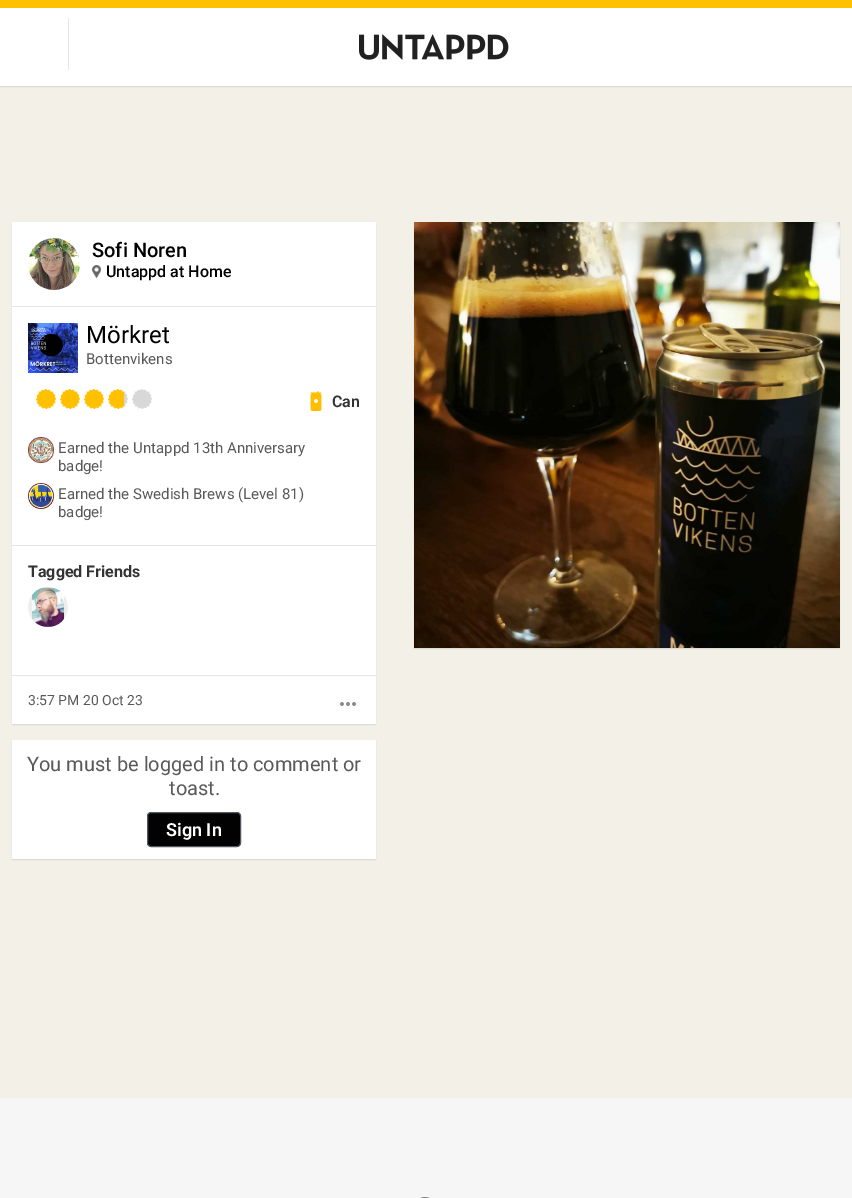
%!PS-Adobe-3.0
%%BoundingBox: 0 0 852 1198
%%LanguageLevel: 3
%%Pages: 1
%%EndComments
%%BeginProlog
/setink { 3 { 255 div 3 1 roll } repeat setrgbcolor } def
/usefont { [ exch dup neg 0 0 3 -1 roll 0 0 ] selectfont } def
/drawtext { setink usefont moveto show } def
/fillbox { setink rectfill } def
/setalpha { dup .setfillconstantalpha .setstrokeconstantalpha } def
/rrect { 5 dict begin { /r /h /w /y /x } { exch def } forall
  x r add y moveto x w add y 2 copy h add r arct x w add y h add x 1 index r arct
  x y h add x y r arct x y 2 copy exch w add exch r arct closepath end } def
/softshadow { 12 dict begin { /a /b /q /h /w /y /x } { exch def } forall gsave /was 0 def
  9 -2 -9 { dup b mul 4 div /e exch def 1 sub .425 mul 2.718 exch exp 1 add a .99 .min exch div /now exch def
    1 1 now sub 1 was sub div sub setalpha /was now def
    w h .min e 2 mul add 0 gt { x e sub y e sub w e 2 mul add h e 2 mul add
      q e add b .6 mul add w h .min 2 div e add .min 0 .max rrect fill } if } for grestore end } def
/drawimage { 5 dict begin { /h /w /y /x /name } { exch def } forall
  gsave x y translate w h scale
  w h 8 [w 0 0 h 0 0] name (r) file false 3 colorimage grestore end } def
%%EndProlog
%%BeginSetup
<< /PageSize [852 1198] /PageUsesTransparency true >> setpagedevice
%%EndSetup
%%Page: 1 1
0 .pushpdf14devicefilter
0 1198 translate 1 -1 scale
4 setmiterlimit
0 0 852 1198 243 240 232 fillbox
0 0 0 setink
0 1 852 86 0 0.5 0.1 softshadow
0 8 852 78 255 255 255 fillbox
0 0 852 8 255 192 0 fillbox
68 18 1 52 230 230 230 fillbox
(assets/img1.rgb) 359 34 150 26 drawimage
0 0 0 setink
12 223 364 502 0 0.5 0.1 softshadow
12 222 364 502 255 255 255 fillbox
12 306 364 1 230 230 230 fillbox
(assets/img2.rgb) 28 238 52 52 drawimage
(Sofi Noren) 92 257 /Roboto-Medium 20 0 0 0 drawtext
(assets/img3.rgb) 92 265 9 13 drawimage
(Untappd at Home) 106 277 /Roboto-Medium 16 0 0 0 drawtext
414 223 426 426 0 0.5 0.1 softshadow
(assets/img4.rgb) 414 222 426 426 drawimage
12 545 364 1 230 230 230 fillbox
(assets/img5.rgb) 28 323 50 50 drawimage
(Mörkret) 86 343 /Roboto-Regular 24 0 0 0 drawtext
(Bottenvikens) 86 364 /Roboto-Regular 15 89 89 89 drawtext
(assets/img6.rgb) 36 389 20 20 drawimage
(assets/img6.rgb) 60 389 20 20 drawimage
(assets/img7.rgb) 84 389 20 20 drawimage
(assets/img8.rgb) 108 389 20 20 drawimage
(assets/img9.rgb) 132 389 20 20 drawimage
(assets/img10.rgb) 310 391 12 20 drawimage
(Can) 332 407 /Roboto-SemiBold 16 51 51 51 drawtext
(assets/img11.rgb) 28 437 26 26 drawimage
(Earned the Untappd 13th Anniversary) 58 453 /Roboto-Regular 15 89 89 89 drawtext
(badge!) 58 471 /Roboto-Regular 15 89 89 89 drawtext
(assets/img12.rgb) 28 483 26 26 drawimage
(Earned the Swedish Brews \(Level 81\)) 58 499 /Roboto-Regular 15 89 89 89 drawtext
(badge!) 58 517 /Roboto-Regular 15 89 89 89 drawtext
12 675 364 1 230 230 230 fillbox
(Tagged Friends) 28 577 /Roboto-Bold 16 51 51 51 drawtext
(assets/img13.rgb) 28 587 40 40 drawimage
(3:57 PM 20 Oct 23) 28 705 /Roboto-Regular 14 89 89 89 drawtext
(assets/img14.rgb) 340 702 16 4 drawimage
0 0 0 setink
12 741 364 119 0 0.5 0.1 softshadow
12 740 364 119 255 255 255 fillbox
(You must be logged in to comment or) 27 771 /Roboto-Regular 20 89 89 89 drawtext
(toast.) 169 795 /Roboto-Regular 20 89 89 89 drawtext
2 2 2 setink
147.5 812.5 93 34 3.5 rrect gsave fill grestore
84 88 99 setink
stroke
(Sign In) 166 836 /Roboto-SemiBold 18 255 255 255 drawtext
0 1098 852 100 247 246 246 fillbox
136 136 136 setink
414.5 1197.5 21 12 10.5 rrect stroke
.poppdf14devicefilter showpage
%%EOF
